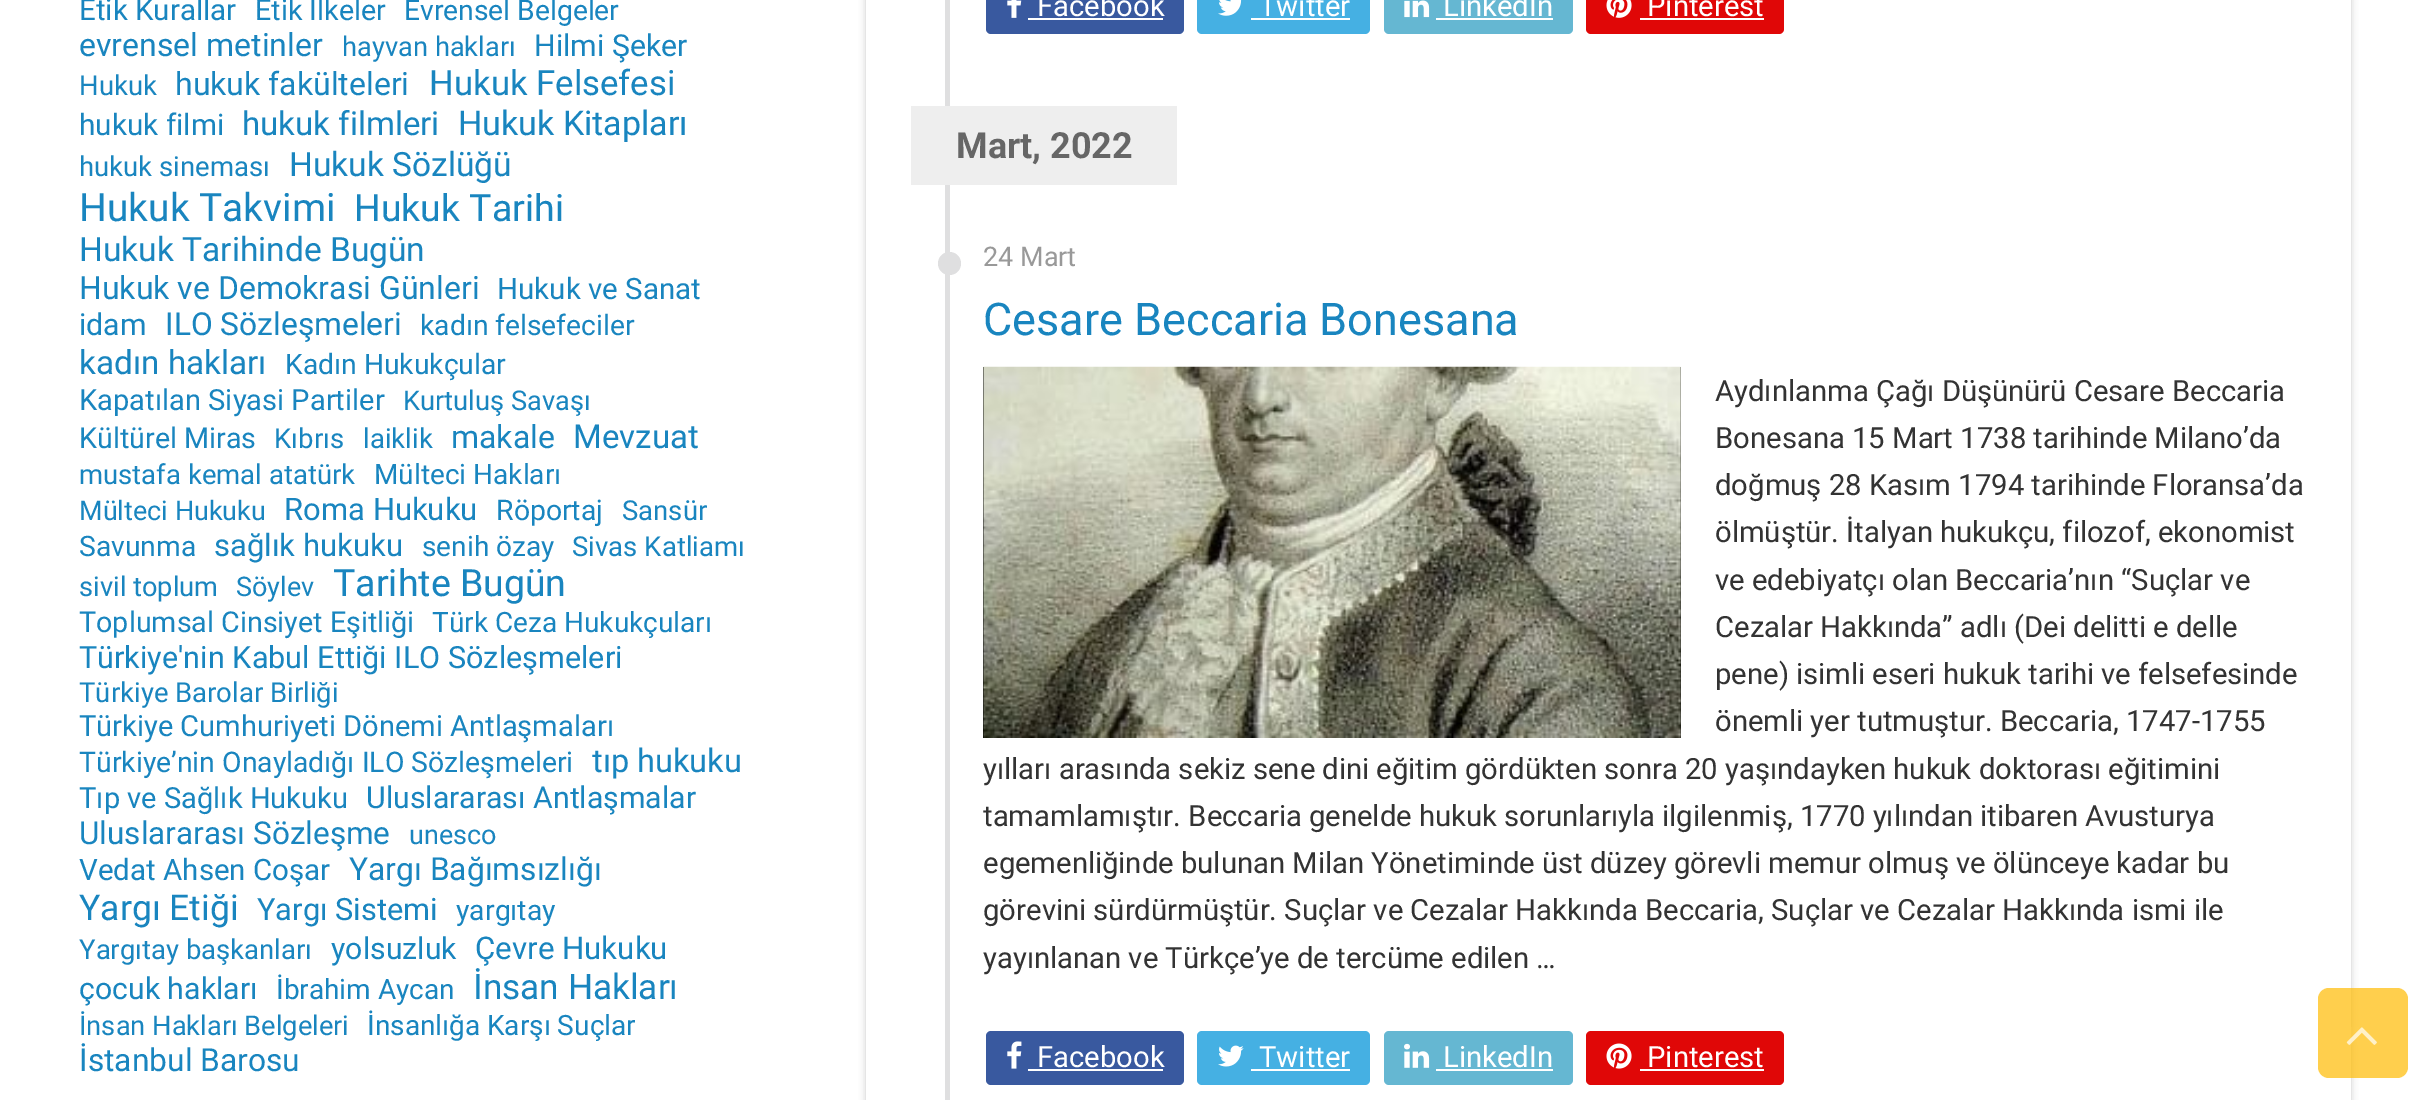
%!PS-Adobe-3.0
%%BoundingBox: 0 0 2430 1100
%%LanguageLevel: 3
%%Pages: 1
%%EndComments
%%BeginProlog
/setink { 3 { 255 div 3 1 roll } repeat setrgbcolor } def
/usefont { [ exch dup neg 0 0 3 -1 roll 0 0 ] selectfont } def
/drawtext { setink usefont moveto show } def
/fillbox { setink rectfill } def
/setalpha { dup .setfillconstantalpha .setstrokeconstantalpha } def
/disc { newpath 0 360 arc closepath } def
/rrect { 5 dict begin { /r /h /w /y /x } { exch def } forall
  x r add y moveto x w add y 2 copy h add r arct x w add y h add x 1 index r arct
  x y h add x y r arct x y 2 copy exch w add exch r arct closepath end } def
/softshadow { 12 dict begin { /a /b /q /h /w /y /x } { exch def } forall gsave /was 0 def
  9 -2 -9 { dup b mul 4 div /e exch def 1 sub .425 mul 2.718 exch exp 1 add a .99 .min exch div /now exch def
    1 1 now sub 1 was sub div sub setalpha /was now def
    w h .min e 2 mul add 0 gt { x e sub y e sub w e 2 mul add h e 2 mul add
      q e add b .6 mul add w h .min 2 div e add .min 0 .max rrect fill } if } for grestore end } def
/drawimage { 5 dict begin { /h /w /y /x /name } { exch def } forall
  gsave x y translate w h scale
  w h 8 [w 0 0 h 0 0] name (r) file false 3 colorimage grestore end } def
%%EndProlog
%%BeginSetup
<< /PageSize [2430 1100] /PageUsesTransparency true >> setpagedevice
%%EndSetup
%%Page: 1 1
0 .pushpdf14devicefilter
0 1100 translate 1 -1 scale
4 setmiterlimit
0 0 2430 1100 255 255 255 fillbox
(Etik Kurallar) 79 20 /Roboto-Regular 29.5 25 133 191 drawtext
(Etik İlkeler) 255 20 /Roboto-Regular 28.7 25 133 191 drawtext
(Evrensel Belgeler) 404 20 /Roboto-Regular 28.25 25 133 191 drawtext
(evrensel metinler) 79 56 /Roboto-Regular 32 25 133 191 drawtext
(hayvan hakları) 342 56 /Roboto-Regular 27.25 25 133 191 drawtext
(Hilmi Şeker) 534 56 /Roboto-Regular 30.25 25 133 191 drawtext
(Hukuk) 79 95 /Roboto-Regular 27.5 25 133 191 drawtext
(hukuk fakülteleri) 175 95 /Roboto-Regular 32 25 133 191 drawtext
(Hukuk Felsefesi) 429 95 /Roboto-Regular 34.75 25 133 191 drawtext
(hukuk filmi) 79 135 /Roboto-Regular 29.75 25 133 191 drawtext
(hukuk filmleri) 242 135 /Roboto-Regular 33 25 133 191 drawtext
(Hukuk Kitapları) 458 135 /Roboto-Regular 34 25 133 191 drawtext
(hukuk sineması) 79 176 /Roboto-Regular 27.5 25 133 191 drawtext
(Hukuk Sözlüğü) 289 176 /Roboto-Regular 33.5 25 133 191 drawtext
(Hukuk Takvimi) 79 221 /Roboto-Regular 39 25 133 191 drawtext
(Hukuk Tarihi) 354 221 /Roboto-Regular 37.5 25 133 191 drawtext
(Hukuk Tarihinde Bugün) 79 261 /Roboto-Regular 33.5 25 133 191 drawtext
(Hukuk ve Demokrasi Günleri) 79 299 /Roboto-Regular 32 25 133 191 drawtext
(Hukuk ve Sanat) 497 299 /Roboto-Regular 29.5 25 133 191 drawtext
(idam) 79 335 /Roboto-Regular 30.25 25 133 191 drawtext
(ILO Sözleşmeleri) 165 335 /Roboto-Regular 31.75 25 133 191 drawtext
(kadın felsefeciler) 420 335 /Roboto-Regular 28.25 25 133 191 drawtext
(kadın hakları) 79 374 /Roboto-Regular 33.25 25 133 191 drawtext
(Kadın Hukukçular) 285 374 /Roboto-Regular 28.25 25 133 191 drawtext
(Kapatılan Siyasi Partiler) 79 410 /Roboto-Regular 29.1 25 133 191 drawtext
(Kurtuluş Savaşı) 403 410 /Roboto-Regular 27.25 25 133 191 drawtext
(Kültürel Miras) 79 448 /Roboto-Regular 28.7 25 133 191 drawtext
(Kıbrıs) 274 448 /Roboto-Regular 27.5 25 133 191 drawtext
(laiklik) 363 448 /Roboto-Regular 27.5 25 133 191 drawtext
(makale) 451 448 /Roboto-Regular 32 25 133 191 drawtext
(Mevzuat) 573 448 /Roboto-Regular 33 25 133 191 drawtext
(mustafa kemal atatürk) 79 484 /Roboto-Regular 27.5 25 133 191 drawtext
(Mülteci Hakları) 374 484 /Roboto-Regular 28 25 133 191 drawtext
(Mülteci Hukuku) 79 520 /Roboto-Regular 27 25 133 191 drawtext
(Roma Hukuku) 284 520 /Roboto-Regular 31 25 133 191 drawtext
(Röportaj) 496 520 /Roboto-Regular 28.4 25 133 191 drawtext
(Sansür) 622 520 /Roboto-Regular 27.5 25 133 191 drawtext
(Savunma) 79 556 /Roboto-Regular 28.25 25 133 191 drawtext
(sağlık hukuku) 214 556 /Roboto-Regular 31 25 133 191 drawtext
(senih özay) 422 556 /Roboto-Regular 28 25 133 191 drawtext
(Sivas Katliamı) 572 556 /Roboto-Regular 27.5 25 133 191 drawtext
(sivil toplum) 79 596 /Roboto-Regular 27.25 25 133 191 drawtext
(Söylev) 236 596 /Roboto-Regular 27 25 133 191 drawtext
(Tarihte Bugün) 333 596 /Roboto-Regular 37.5 25 133 191 drawtext
(Toplumsal Cinsiyet Eşitliği) 79 632 /Roboto-Regular 28.7 25 133 191 drawtext
(Türk Ceza Hukukçuları) 432 632 /Roboto-Regular 28 25 133 191 drawtext
(Türkiye'nin Kabul Ettiği ILO Sözleşmeleri) 79 668 /Roboto-Regular 30.6 25 133 191 drawtext
(Türkiye Barolar Birliği) 79 702 /Roboto-Regular 27.5 25 133 191 drawtext
(Türkiye Cumhuriyeti Dönemi Antlaşmaları) 79 736 /Roboto-Regular 29.1 25 133 191 drawtext
(Türkiye’nin Onayladığı ILO Sözleşmeleri) 79 772 /Roboto-Regular 28.4 25 133 191 drawtext
(tıp hukuku) 592 772 /Roboto-Regular 32.5 25 133 191 drawtext
(Tıp ve Sağlık Hukuku) 79 808 /Roboto-Regular 29.1 25 133 191 drawtext
(Uluslararası Antlaşmalar) 366 808 /Roboto-Regular 30.25 25 133 191 drawtext
(Uluslararası Sözleşme) 79 844 /Roboto-Regular 31.5 25 133 191 drawtext
(unesco) 409 844 /Roboto-Regular 27 25 133 191 drawtext
(Vedat Ahsen Coşar) 79 880 /Roboto-Regular 29.5 25 133 191 drawtext
(Yargı Bağımsızlığı) 349 880 /Roboto-Regular 31.75 25 133 191 drawtext
(Yargı Etiği) 79 920 /Roboto-Regular 35.5 25 133 191 drawtext
(Yargı Sistemi) 257 920 /Roboto-Regular 30.75 25 133 191 drawtext
(yargıtay) 456 920 /Roboto-Regular 28.4 25 133 191 drawtext
(Yargıtay başkanları) 79 959 /Roboto-Regular 27.5 25 133 191 drawtext
(yolsuzluk) 331 959 /Roboto-Regular 30.25 25 133 191 drawtext
(Çevre Hukuku) 475 959 /Roboto-Regular 31.25 25 133 191 drawtext
(çocuk hakları) 79 999 /Roboto-Regular 30.25 25 133 191 drawtext
(İbrahim Aycan) 276 999 /Roboto-Regular 28 25 133 191 drawtext
(İnsan Hakları) 473 999 /Roboto-Regular 35.25 25 133 191 drawtext
(İnsan Hakları Belgeleri) 79 1035 /Roboto-Regular 27.25 25 133 191 drawtext
(İnsanlığa Karşı Suçlar) 367 1035 /Roboto-Regular 28 25 133 191 drawtext
(İstanbul Barosu) 79 1071 /Roboto-Regular 31.75 25 133 191 drawtext
202 202 202 setink
866 -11 1485 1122 0 3.5 1 softshadow
866 0 1485 1100 255 255 255 fillbox
945 0 5 106 223 223 224 fillbox
57 89 159 setink
986 -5 198 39 5 rrect fill
(assets/img1.rgb) 1007 0 15 18 drawimage
(Facebook) 1037 16 /Roboto-Regular 29.25 255 255 255 drawtext
1028 18 135 2 255 255 255 fillbox
69 176 227 setink
1197 -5 173 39 5 rrect fill
(assets/img2.rgb) 1218 0 24 16 drawimage
(Twitter) 1259 16 /Roboto-Regular 29.25 255 255 255 drawtext
1251 18 99 2 255 255 255 fillbox
101 183 210 setink
1384 -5 189 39 5 rrect fill
(assets/img3.rgb) 1404 0 26 18 drawimage
(LinkedIn) 1443 16 /Roboto-Regular 29.25 255 255 255 drawtext
1436 18 117 2 255 255 255 fillbox
224 7 7 setink
1586 -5 198 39 5 rrect fill
(assets/img4.rgb) 1606 0 26 18 drawimage
(Pinterest) 1647 16 /Roboto-Regular 29.25 255 255 255 drawtext
1640 18 124 2 255 255 255 fillbox
911 106 266 79 238 238 238 fillbox
(Mart, 2022) 956 158 /Roboto-Bold 36 102 102 102 drawtext
945 185 5 915 223 223 224 fillbox
949.5 263.5 11.5 disc fill
(24 Mart) 983 266 /Roboto-Regular 27 153 153 153 drawtext
(Cesare Beccaria Bonesana) 983 335 /Roboto-Regular 45 25 133 191 drawtext
983 367 698 371 0 0 0 fillbox
(assets/img5.rgb) 983 366 698 372 drawimage
(Aydınlanma Çağı Düşünürü Cesare Beccaria) 1715 401 /Roboto-Regular 29.25 51 51 51 drawtext
(Bonesana 15 Mart 1738 tarihinde Milano’da) 1715 448 /Roboto-Regular 29.25 51 51 51 drawtext
(doğmuş 28 Kasım 1794 tarihinde Floransa’da) 1715 495 /Roboto-Regular 29.25 51 51 51 drawtext
(ölmüştür. İtalyan hukukçu, filozof, ekonomist) 1715 542 /Roboto-Regular 29.25 51 51 51 drawtext
(ve edebiyatçı olan Beccaria’nın “Suçlar ve) 1715 590 /Roboto-Regular 29.25 51 51 51 drawtext
(Cezalar Hakkında” adlı \(Dei delitti e delle) 1715 637 /Roboto-Regular 29.25 51 51 51 drawtext
(pene\) isimli eseri hukuk tarihi ve felsefesinde) 1715 684 /Roboto-Regular 29.25 51 51 51 drawtext
(önemli yer tutmuştur. Beccaria, 1747-1755) 1715 731 /Roboto-Regular 29.25 51 51 51 drawtext
(yılları arasında sekiz sene dini eğitim gördükten sonra 20 yaşındayken hukuk doktorası eğitimini) 983 779 /Roboto-Regular 29.25 51 51 51 drawtext
(tamamlamıştır. Beccaria genelde hukuk sorunlarıyla ilgilenmiş, 1770 yılından itibaren Avusturya) 983 826 /Roboto-Regular 29.25 51 51 51 drawtext
(egemenliğinde bulunan Milan Yönetiminde üst düzey görevli memur olmuş ve ölünceye kadar bu) 983 873 /Roboto-Regular 29.25 51 51 51 drawtext
(görevini sürdürmüştür. Suçlar ve Cezalar Hakkında Beccaria, Suçlar ve Cezalar Hakkında ismi ile) 983 920 /Roboto-Regular 29.25 51 51 51 drawtext
(yayınlanan ve Türkçe’ye de tercüme edilen …) 983 968 /Roboto-Regular 29.25 51 51 51 drawtext
57 89 159 setink
986 1031 198 54 5 rrect fill
(assets/img6.rgb) 1007 1041 15 28 drawimage
(Facebook) 1037 1067 /Roboto-Regular 29.25 255 255 255 drawtext
1028 1069 135 2 255 255 255 fillbox
69 176 227 setink
1197 1031 173 54 5 rrect fill
(assets/img7.rgb) 1218 1045 26 22 drawimage
(Twitter) 1259 1067 /Roboto-Regular 29.25 255 255 255 drawtext
1251 1069 99 2 255 255 255 fillbox
101 183 210 setink
1384 1031 189 54 5 rrect fill
(assets/img8.rgb) 1404 1043 26 25 drawimage
(LinkedIn) 1443 1067 /Roboto-Regular 29.25 255 255 255 drawtext
1436 1069 117 2 255 255 255 fillbox
224 7 7 setink
1586 1031 198 54 5 rrect fill
(assets/img9.rgb) 1606 1043 26 26 drawimage
(Pinterest) 1647 1067 /Roboto-Regular 29.25 255 255 255 drawtext
1640 1069 124 2 255 255 255 fillbox
0.7 setalpha
255 187 1 setink
2318 988 90 90 11 rrect fill
1 setalpha
(assets/img10.rgb) 2346 1027 31 18 drawimage
.poppdf14devicefilter showpage
%%EOF
